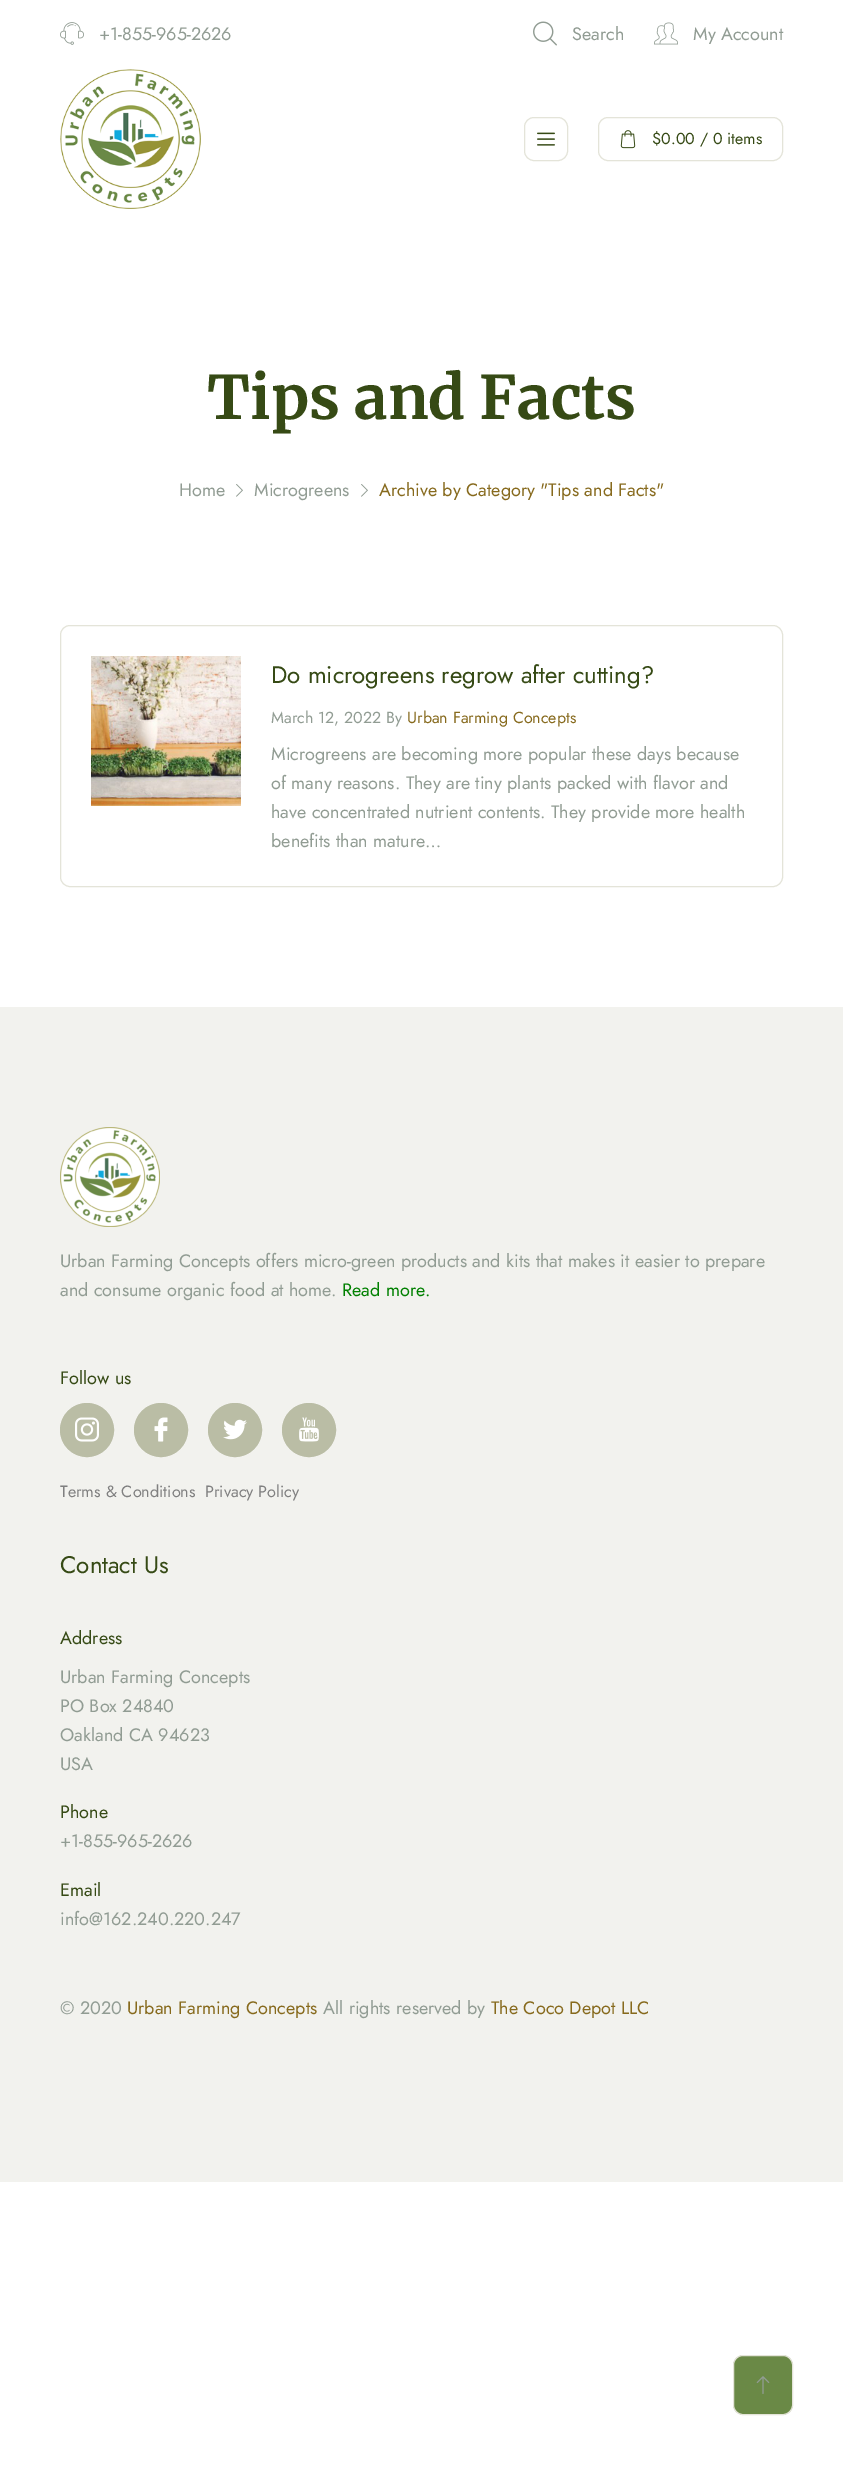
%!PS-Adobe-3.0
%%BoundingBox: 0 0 843 2465
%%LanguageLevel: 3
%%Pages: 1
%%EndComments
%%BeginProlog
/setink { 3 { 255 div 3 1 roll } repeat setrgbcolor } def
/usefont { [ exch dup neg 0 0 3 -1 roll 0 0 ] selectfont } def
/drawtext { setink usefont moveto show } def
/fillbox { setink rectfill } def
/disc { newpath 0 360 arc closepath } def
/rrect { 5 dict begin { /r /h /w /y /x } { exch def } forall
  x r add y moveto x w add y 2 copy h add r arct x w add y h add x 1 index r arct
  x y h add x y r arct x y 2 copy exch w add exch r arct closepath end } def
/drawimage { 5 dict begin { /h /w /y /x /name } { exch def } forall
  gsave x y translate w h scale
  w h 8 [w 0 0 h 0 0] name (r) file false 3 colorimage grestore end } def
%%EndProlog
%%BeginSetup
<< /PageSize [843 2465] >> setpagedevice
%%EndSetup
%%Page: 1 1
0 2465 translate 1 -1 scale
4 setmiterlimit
0 0 843 2465 255 255 255 fillbox
(assets/img1.rgb) 60 22 24 23 drawimage
(+1-855-965-2626) 99 40 /Jost-Regular 18 145 156 147 drawtext
(assets/img2.rgb) 533 21 24 25 drawimage
(Search) 572 40 /Jost-Regular 18 145 156 147 drawtext
(assets/img3.rgb) 654 22 24 23 drawimage
(My Account) 693 40 /Jost-Regular 18 145 156 147 drawtext
(assets/img4.rgb) 60 69 141 140 drawimage
228 228 217 setink
524.5 117.5 43 43 9.5 rrect stroke
(assets/img5.rgb) 537 132 18 14 drawimage
598.5 117.5 184 43 9.5 rrect stroke
(assets/img6.rgb) 620 130 16 19 drawimage
($0.00 / 0 items) 652 144 /Jost-Regular 16 54 74 21 drawtext
(Tips and Facts) 207 419 /Merriweather-Bold 60 54 74 21 drawtext
(Home) 179 496 /Jost-Regular 18 145 156 147 drawtext
(assets/img7.rgb) 236 484 7 13 drawimage
(Microgreens) 254 496 /Jost-Regular 18 145 156 147 drawtext
(assets/img7.rgb) 361 484 7 13 drawimage
(Archive by Category "Tips and Facts") 379 496 /Jost-Regular 18 135 106 29 drawtext
228 228 217 setink
60.5 625.5 722 261 9.5 rrect stroke
(assets/img8.rgb) 91 656 150 150 drawimage
(Do microgreens regrow after cutting?) 271 683 /Jost-Regular 24 54 74 21 drawtext
(March 12, 2022 By) 271 723 /Jost-Regular 16 145 156 147 drawtext
(Urban Farming Concepts) 407 723 /Jost-Regular 16 135 106 29 drawtext
(Microgreens are becoming more popular these days because) 271 760 /Jost-Regular 18 145 156 147 drawtext
(of many reasons. They are tiny plants packed with flavor and) 271 789 /Jost-Regular 18 145 156 147 drawtext
(have concentrated nutrient contents. They provide more health) 271 818 /Jost-Regular 18 145 156 147 drawtext
(benefits than mature…) 271 847 /Jost-Regular 18 145 156 147 drawtext
0 1007 843 1175 242 242 238 fillbox
(assets/img9.rgb) 60 1127 100 100 drawimage
(Urban Farming Concepts offers micro-green products and kits that makes it easier to prepare) 60 1267 /Jost-Regular 18 145 156 147 drawtext
(and consume organic food at home.) 60 1296 /Jost-Regular 18 145 156 147 drawtext
(Read more.) 342 1296 /Jost-Regular 18 0 128 0 drawtext
(Follow us) 60 1384 /Jost-Regular 18 54 74 21 drawtext
186 189 165 setink
87 1430 26.5 disc gsave fill grestore
stroke
(assets/img10.rgb) 75 1417 24 25 drawimage
161 1430 26.5 disc gsave fill grestore
stroke
(assets/img11.rgb) 154 1417 14 25 drawimage
235 1430 26.5 disc gsave fill grestore
stroke
(assets/img12.rgb) 223 1419 24 21 drawimage
309 1430 26.5 disc gsave fill grestore
stroke
(assets/img13.rgb) 299 1417 20 25 drawimage
(Terms & Conditions) 60 1497 /Jost-Regular 16.25 128 128 128 drawtext
(Privacy Policy) 205 1497 /Jost-Regular 16.25 128 128 128 drawtext
(Contact Us) 60 1573 /Jost-Regular 24 54 74 21 drawtext
(Address) 60 1644 /Jost-Regular 18 54 74 21 drawtext
(Urban Farming Concepts) 60 1683 /Jost-Regular 18 145 156 147 drawtext
(PO Box 24840) 60 1712 /Jost-Regular 18 145 156 147 drawtext
(Oakland CA 94623) 60 1741 /Jost-Regular 18 145 156 147 drawtext
(USA) 60 1770 /Jost-Regular 18 145 156 147 drawtext
(Phone) 60 1818 /Jost-Regular 18 54 74 21 drawtext
(+1-855-965-2626) 60 1847 /Jost-Regular 18 145 156 147 drawtext
(Email) 60 1896 /Jost-Regular 18 54 74 21 drawtext
(info@162.240.220.247) 60 1925 /Jost-Regular 18 145 156 147 drawtext
(© 2020) 60 2014 /Jost-Regular 18 145 156 147 drawtext
(Urban Farming Concepts) 127 2014 /Jost-Regular 18 135 106 29 drawtext
(All rights reserved by) 323 2014 /Jost-Regular 18 145 156 147 drawtext
(The Coco Depot LLC) 491 2014 /Jost-Regular 18 135 106 29 drawtext
106 137 70 setink
733.5 2355.5 59 59 9.5 rrect gsave fill grestore
228 228 217 setink
stroke
(assets/img14.rgb) 756 2376 14 18 drawimage
showpage
%%EOF
